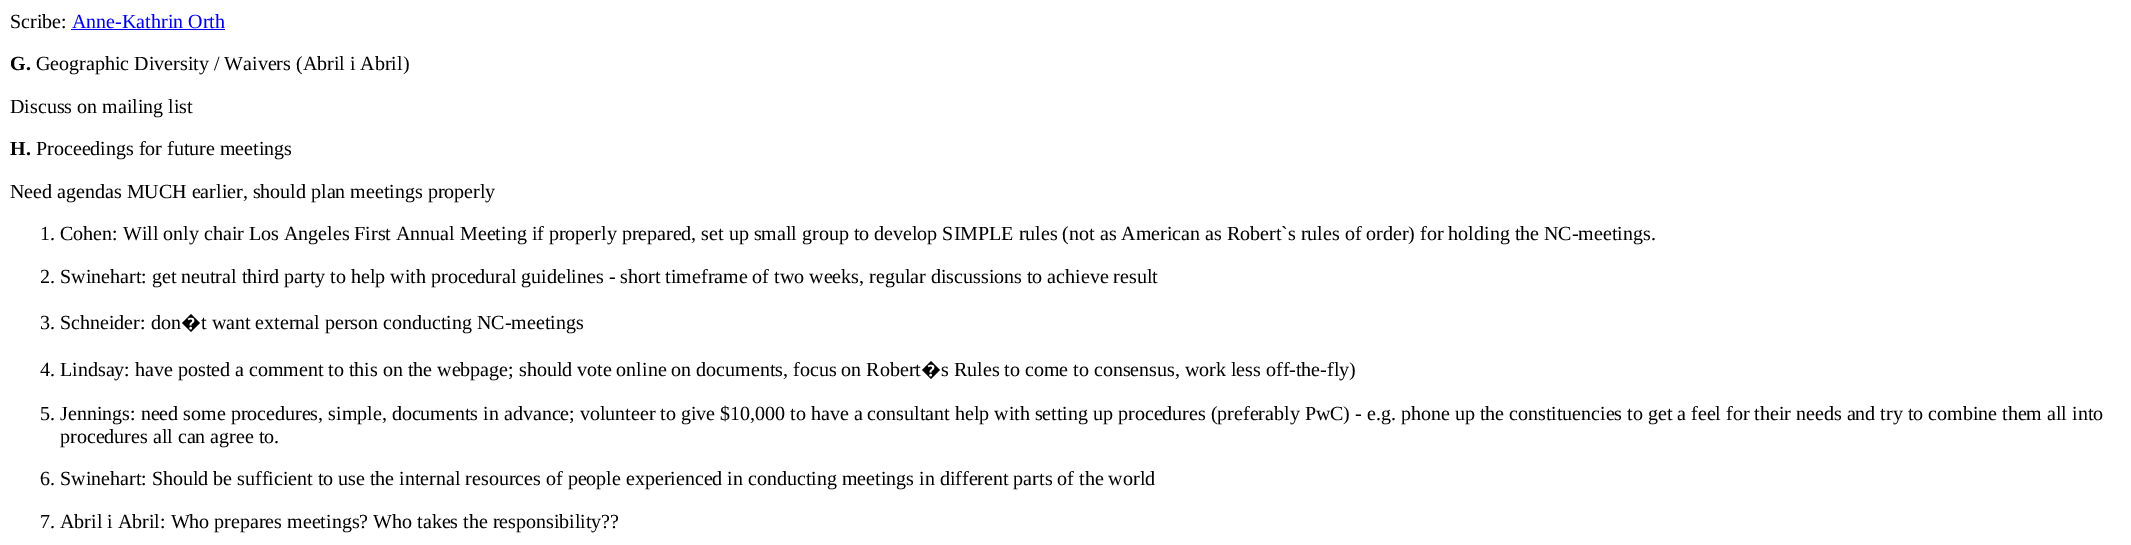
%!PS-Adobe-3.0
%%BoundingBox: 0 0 2131 545
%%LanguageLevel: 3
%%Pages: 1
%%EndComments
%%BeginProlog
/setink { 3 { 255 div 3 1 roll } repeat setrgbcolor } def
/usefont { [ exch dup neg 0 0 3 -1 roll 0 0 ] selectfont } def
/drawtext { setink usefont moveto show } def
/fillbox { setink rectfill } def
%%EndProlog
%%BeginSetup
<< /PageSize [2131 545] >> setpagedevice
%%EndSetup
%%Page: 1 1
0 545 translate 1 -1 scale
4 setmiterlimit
0 0 2131 545 255 255 255 fillbox
(Scribe:) 10 28 /LiberationSerif-Regular 20 0 0 0 drawtext
(Anne-Kathrin Orth) 72 28 /LiberationSerif-Regular 20 0 0 238 drawtext
71 29 154 1 0 0 238 fillbox
(G.) 10 70 /LiberationSerif-Bold 20 0 0 0 drawtext
(Geographic Diversity / Waivers \(Abril i Abril\)) 36 70 /LiberationSerif-Regular 20 0 0 0 drawtext
(Discuss on mailing list) 10 113 /LiberationSerif-Regular 20 0 0 0 drawtext
(H.) 10 155 /LiberationSerif-Bold 20 0 0 0 drawtext
(Proceedings for future meetings) 36 155 /LiberationSerif-Regular 20 0 0 0 drawtext
(Need agendas MUCH earlier, should plan meetings properly) 10 198 /LiberationSerif-Regular 20 0 0 0 drawtext
(1. Cohen: Will only chair Los Angeles First Annual Meeting if properly prepared, set up small group to develop SIMPLE rules \(not as American as Robert`s rules of order\) for holding the NC-meetings.) 40 240 /LiberationSerif-Regular 20 0 0 0 drawtext
(2. Swinehart: get neutral third party to help with procedural guidelines - short timeframe of two weeks, regular discussions to achieve result) 40 283 /LiberationSerif-Regular 20 0 0 0 drawtext
(3. Schneider: don) 40 329 /LiberationSerif-Regular 20 0 0 0 drawtext
(�) 181 329 /NotoSans-Regular 20 0 0 0 drawtext
(t want external person conducting NC-meetings) 201 329 /LiberationSerif-Regular 20 0 0 0 drawtext
(4. Lindsay: have posted a comment to this on the webpage; should vote online on documents, focus on Robert) 40 376 /LiberationSerif-Regular 20 0 0 0 drawtext
(�) 921 376 /NotoSans-Regular 20 0 0 0 drawtext
(s Rules to come to consensus, work less off-the-fly\)) 941 376 /LiberationSerif-Regular 20 0 0 0 drawtext
(5. Jennings: need some procedures, simple, documents in advance; volunteer to give $10,000 to have a consultant help with setting up procedures \(preferably PwC\) - e.g. phone up the constituencies to get a feel for their needs and try to combine them all into) 40 420 /LiberationSerif-Regular 20 0 0 0 drawtext
(procedures all can agree to.) 60 443 /LiberationSerif-Regular 20 0 0 0 drawtext
(6. Swinehart: Should be sufficient to use the internal resources of people experienced in conducting meetings in different parts of the world) 40 485 /LiberationSerif-Regular 20 0 0 0 drawtext
(7. Abril i Abril: Who prepares meetings? Who takes the responsibility??) 40 528 /LiberationSerif-Regular 20 0 0 0 drawtext
showpage
%%EOF
